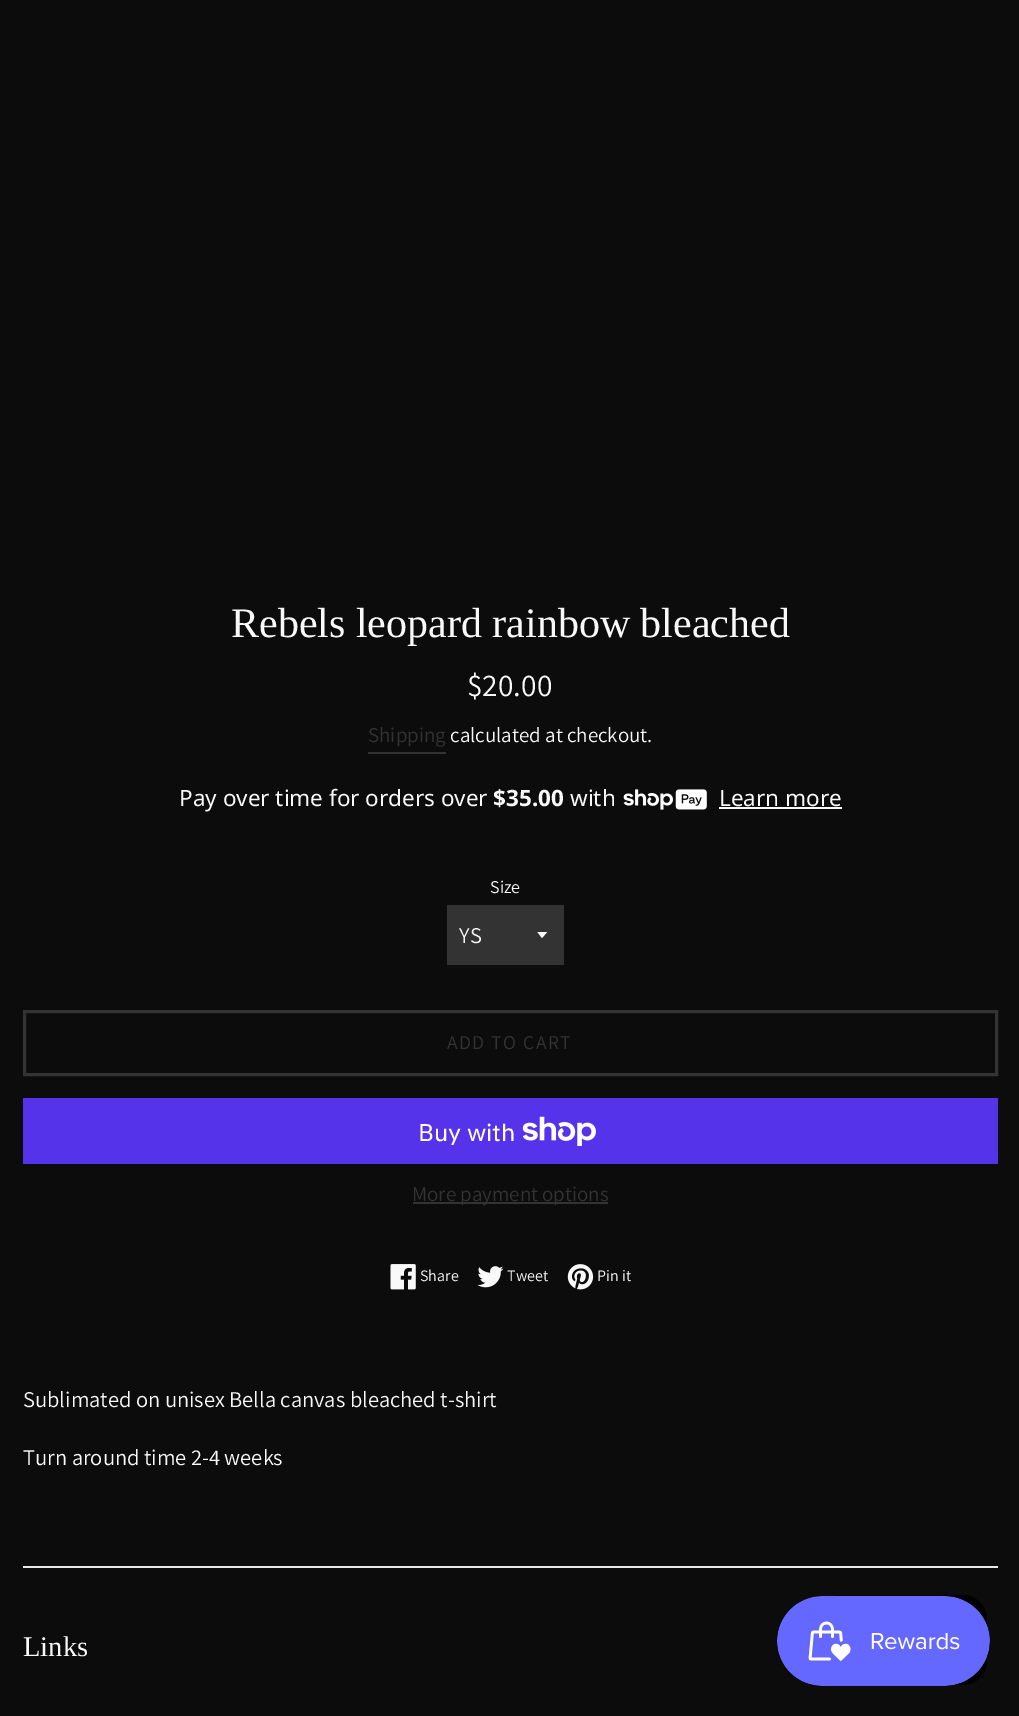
%!PS-Adobe-3.0
%%BoundingBox: 0 0 1019 1716
%%LanguageLevel: 3
%%Pages: 1
%%EndComments
%%BeginProlog
/setink { 3 { 255 div 3 1 roll } repeat setrgbcolor } def
/usefont { [ exch dup neg 0 0 3 -1 roll 0 0 ] selectfont } def
/drawtext { setink usefont moveto show } def
/fillbox { setink rectfill } def
/rrect { 5 dict begin { /r /h /w /y /x } { exch def } forall
  x r add y moveto x w add y 2 copy h add r arct x w add y h add x 1 index r arct
  x y h add x y r arct x y 2 copy exch w add exch r arct closepath end } def
/drawimage { 5 dict begin { /h /w /y /x /name } { exch def } forall
  gsave x y translate w h scale
  w h 8 [w 0 0 h 0 0] name (r) file false 3 colorimage grestore end } def
%%EndProlog
%%BeginSetup
<< /PageSize [1019 1716] >> setpagedevice
%%EndSetup
%%Page: 1 1
0 1716 translate 1 -1 scale
4 setmiterlimit
0 0 1019 1716 13 12 12 fillbox
(Rebels leopard rainbow bleached) 231 637 /LiberationSerif-Regular 42 249 249 249 drawtext
($20.00) 467 696 /Assistant-Regular 31.5 249 249 249 drawtext
(Shipping) 368 742 /Assistant-Regular 21 51 51 51 drawtext
368 752 78 2 51 51 51 fillbox
(calculated at checkout.) 450 742 /Assistant-Regular 21 249 249 249 drawtext
(Pay over time for orders over) 179 806 /NotoSans-Regular 22.5 249 249 249 drawtext
($35.00) 493 806 /NotoSans-Bold 22.5 249 249 249 drawtext
(with) 570 806 /NotoSans-Regular 22.5 249 249 249 drawtext
(assets/img1.rgb) 623 789 84 21 drawimage
(Learn more) 719 806 /NotoSans-Regular 22.5 249 249 249 drawtext
719 807 123 2 249 249 249 fillbox
(Size) 490 893 /Assistant-Regular 18 249 249 249 drawtext
447 905 117 60 51 51 51 fillbox
gsave
537 932 12 7 rectclip
249 249 249 setink
537 931.5 moveto 542 938 lineto 547.5 931.5 lineto closepath fill
grestore
(YS) 459 943 /Assistant-Regular 22.5 249 249 249 drawtext
51 51 51 setink
3 setlinewidth
24.5 1011.5 972 63 rectstroke
/Assistant-Regular 19.5 usefont
447 1049 moveto 1.5 0 (ADD TO CART) ashow
23 1098 975 66 84 51 235 fillbox
(Buy with) 418 1141 /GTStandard-Regular 24 255 255 255 drawtext
(assets/img2.rgb) 522 1116 74 30 drawimage
413 1202 195 2 51 51 51 fillbox
(More payment options) 412 1201 /Assistant-Regular 21 51 51 51 drawtext
(assets/img3.rgb) 390 1264 26 26 drawimage
(Share) 420 1281 /Assistant-Regular 16 249 249 249 drawtext
(assets/img4.rgb) 477 1266 27 22 drawimage
(Tweet) 507 1281 /Assistant-Regular 16 249 249 249 drawtext
(assets/img5.rgb) 567 1264 27 26 drawimage
(Pin it) 597 1281 /Assistant-Regular 16 249 249 249 drawtext
(Sublimated on unisex Bella canvas bleached t-shirt) 23 1407 /Assistant-Regular 22.5 249 249 249 drawtext
(Turn around time 2-4 weeks) 23 1465 /Assistant-Regular 22.5 249 249 249 drawtext
23 1566 975 2 232 232 232 fillbox
(Links) 23 1656 /LiberationSerif-Regular 28.5 249 249 249 drawtext
0 0 0 setink
818 1595 169 90 24 rrect fill
(assets/img6.rgb) 777 1596 213 90 drawimage
showpage
%%EOF
